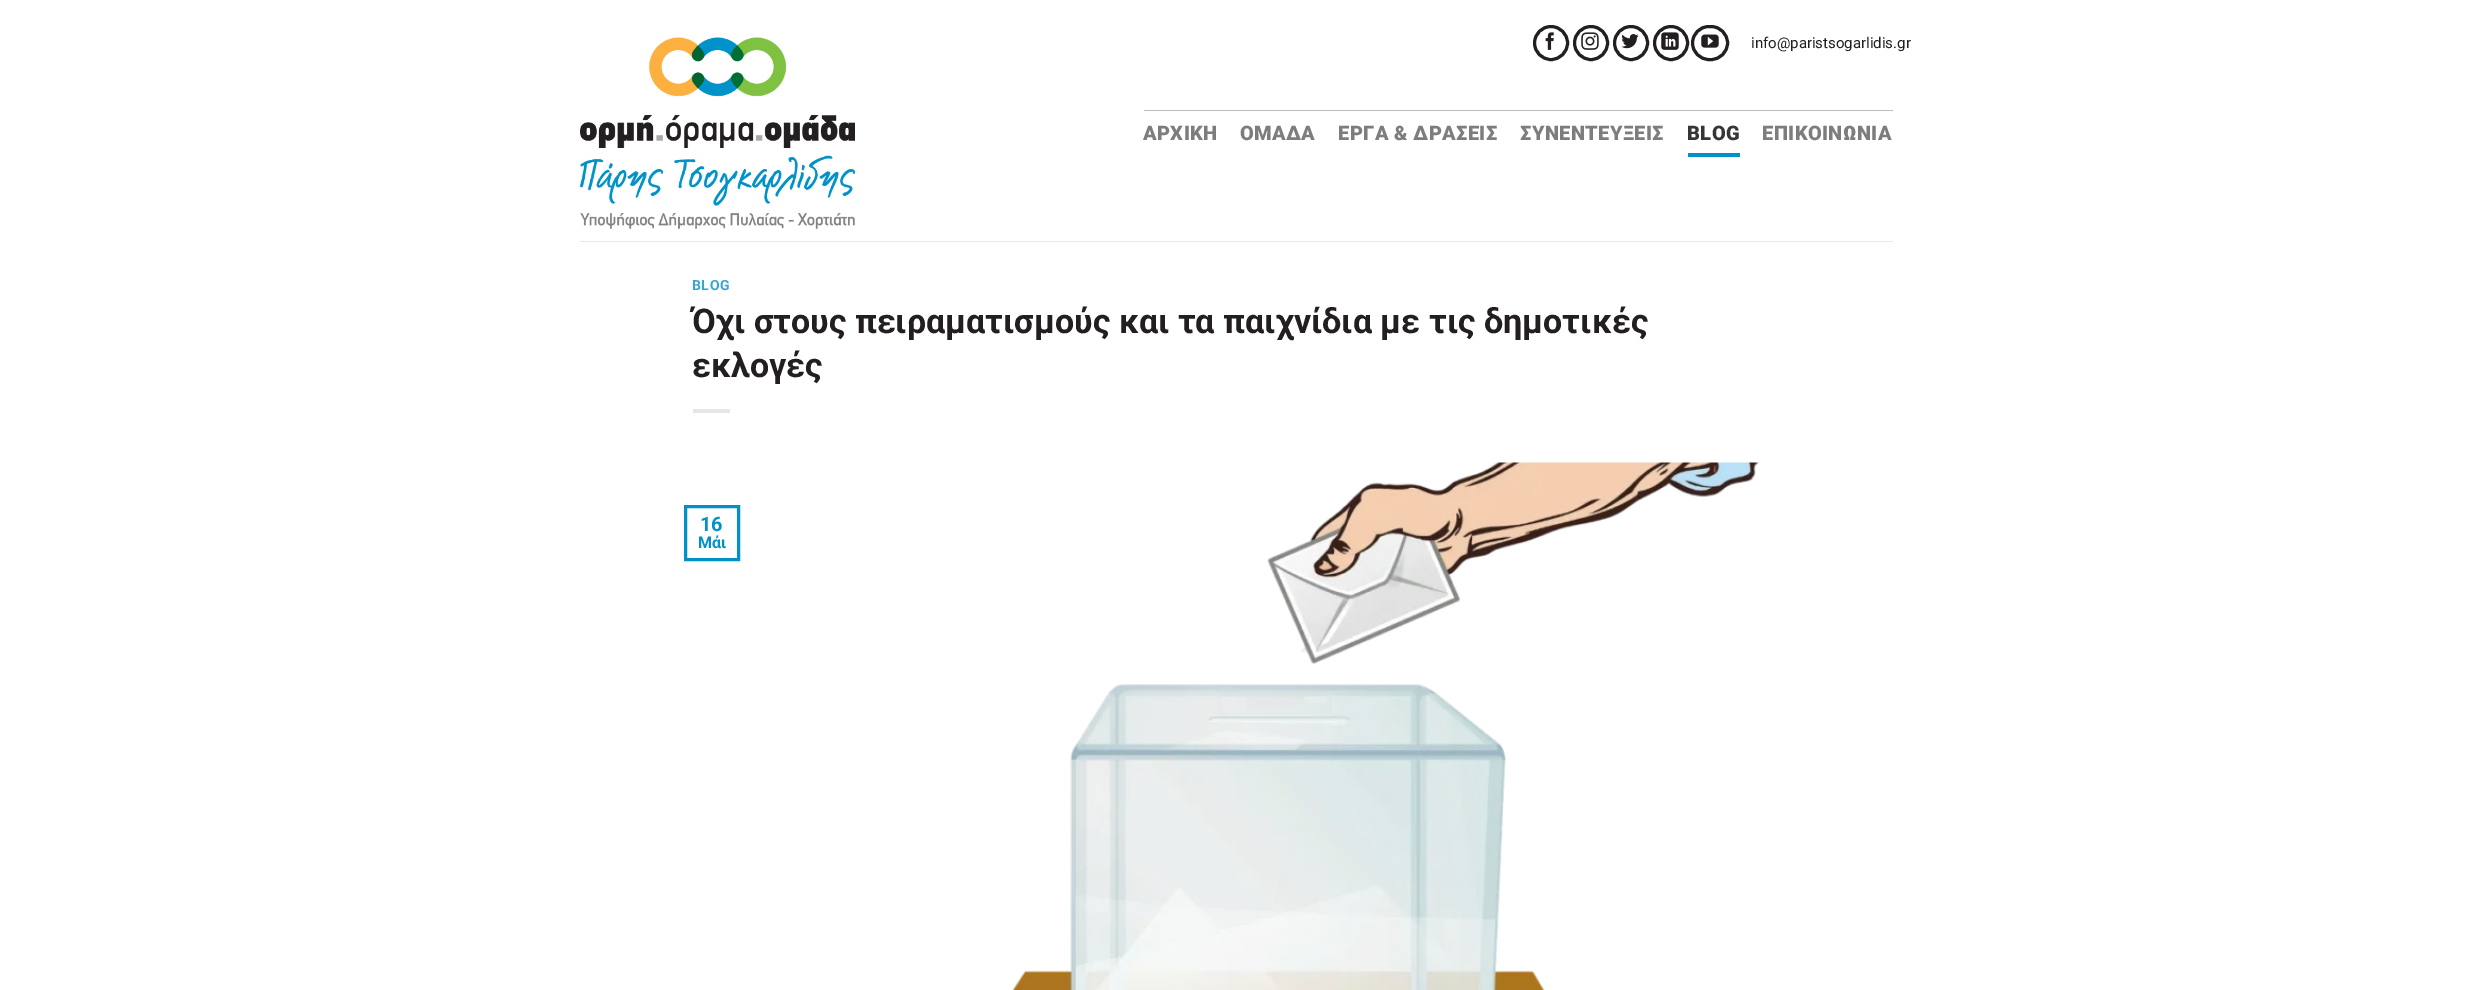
%!PS-Adobe-3.0
%%BoundingBox: 0 0 2471 990
%%LanguageLevel: 3
%%Pages: 1
%%EndComments
%%BeginProlog
/setink { 3 { 255 div 3 1 roll } repeat setrgbcolor } def
/usefont { [ exch dup neg 0 0 3 -1 roll 0 0 ] selectfont } def
/drawtext { setink usefont moveto show } def
/fillbox { setink rectfill } def
/disc { newpath 0 360 arc closepath } def
/rrect { 5 dict begin { /r /h /w /y /x } { exch def } forall
  x r add y moveto x w add y 2 copy h add r arct x w add y h add x 1 index r arct
  x y h add x y r arct x y 2 copy exch w add exch r arct closepath end } def
/drawimage { 5 dict begin { /h /w /y /x /name } { exch def } forall
  gsave x y translate w h scale
  w h 8 [w 0 0 h 0 0] name (r) file false 3 colorimage grestore end } def
%%EndProlog
%%BeginSetup
<< /PageSize [2471 990] >> setpagedevice
%%EndSetup
%%Page: 1 1
0 990 translate 1 -1 scale
4 setmiterlimit
0 0 2471 990 255 255 255 fillbox
35 31 32 setink
3 setlinewidth
1551 43 16.5 disc stroke
(assets/img1.rgb) 1545 32 9 18 drawimage
1591 43 16.5 disc stroke
(assets/img2.rgb) 1581 32 18 18 drawimage
1631 43 16.5 disc stroke
(assets/img3.rgb) 1621 34 18 15 drawimage
1671 43 16.5 disc stroke
(assets/img4.rgb) 1661 32 18 18 drawimage
1692.5 26.5 35 33 16.5 rrect stroke
(assets/img5.rgb) 1701 34 18 14 drawimage
(info@paristsogarlidis.gr) 1751 48 /Roboto-Regular 15 35 31 32 drawtext
(assets/img6.rgb) 580 37 275 192 drawimage
1144 110 749 1 189 189 189 fillbox
/Roboto-Black 20 usefont
125 125 125 setink
1143 140 moveto 0.4 0 (ΑΡΧΙΚΗ) ashow
1240 140 moveto 0.4 0 (ΟΜΑΔΑ) ashow
1338 140 moveto 0.4 0 (ΕΡΓΑ & ΔΡΑΣΕΙΣ) ashow
1520 140 moveto 0.4 0 (ΣΥΝΕΝΤΕΥΞΕΙΣ) ashow
54 54 54 setink
1687 140 moveto 0.4 0 (BLOG) ashow
1688 153 52 4 0 145 199 fillbox
125 125 125 setink
1762 140 moveto 0.4 0 (ΕΠΙΚΟΙΝΩΝΙΑ) ashow
580 241 1313 1 233 233 233 fillbox
/Roboto-Bold 14 usefont
51 167 210 setink
692 290 moveto 0.5 0 (BLOG) ashow
(Όχι στους πειραματισμούς και τα παιχνίδια με τις δημοτικές) 692 333 /Roboto-Bold 34 35 31 32 drawtext
(εκλογές) 692 377 /Roboto-Bold 34 35 31 32 drawtext
693 409 37 4 230 230 230 fillbox
0 145 199 setink
685.5 506.5 53 53 rectstroke
(16) 700 531 /Roboto-Bold 20 0 145 199 drawtext
(Μάι) 698 548 /Roboto-Bold 16 0 145 199 drawtext
(assets/img7.rgb) 1012 462 747 528 drawimage
showpage
%%EOF
